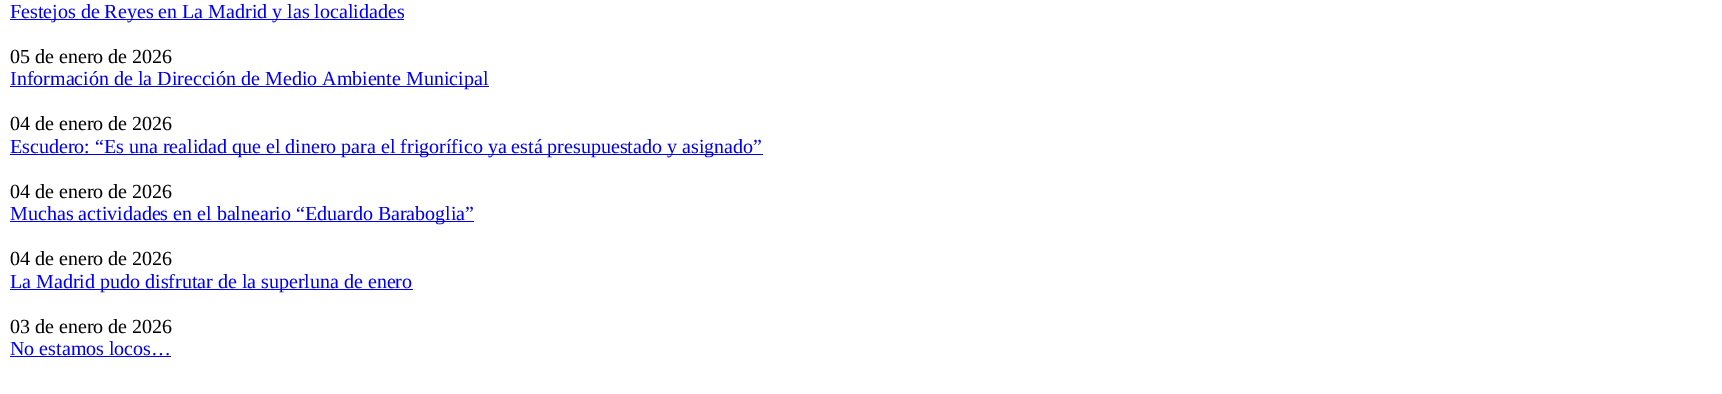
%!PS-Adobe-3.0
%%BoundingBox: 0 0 1722 394
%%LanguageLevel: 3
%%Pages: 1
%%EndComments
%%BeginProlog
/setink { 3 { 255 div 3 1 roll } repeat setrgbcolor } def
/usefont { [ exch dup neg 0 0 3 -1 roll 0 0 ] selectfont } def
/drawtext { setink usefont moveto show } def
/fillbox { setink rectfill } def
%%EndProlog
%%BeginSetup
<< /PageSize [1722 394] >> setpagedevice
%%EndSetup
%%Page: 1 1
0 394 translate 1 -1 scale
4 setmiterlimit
0 0 1722 394 255 255 255 fillbox
10 19 394 1 0 0 238 fillbox
(Festejos de Reyes en La Madrid y las localidades) 10 18 /LiberationSerif-Regular 20 0 0 238 drawtext
(05 de enero de 2026) 10 63 /LiberationSerif-Regular 20 0 0 0 drawtext
10 86 479 1 0 0 238 fillbox
(Información de la Dirección de Medio Ambiente Municipal) 10 85 /LiberationSerif-Regular 20 0 0 238 drawtext
(04 de enero de 2026) 10 130 /LiberationSerif-Regular 20 0 0 0 drawtext
10 154 753 1 0 0 238 fillbox
(Escudero: “Es una realidad que el dinero para el frigorífico ya está presupuestado y asignado”) 10 153 /LiberationSerif-Regular 20 0 0 238 drawtext
(04 de enero de 2026) 10 198 /LiberationSerif-Regular 20 0 0 0 drawtext
10 221 464 1 0 0 238 fillbox
(Muchas actividades en el balneario “Eduardo Baraboglia”) 10 220 /LiberationSerif-Regular 20 0 0 238 drawtext
(04 de enero de 2026) 10 265 /LiberationSerif-Regular 20 0 0 0 drawtext
10 289 403 1 0 0 238 fillbox
(La Madrid pudo disfrutar de la superluna de enero) 10 288 /LiberationSerif-Regular 20 0 0 238 drawtext
(03 de enero de 2026) 10 333 /LiberationSerif-Regular 20 0 0 0 drawtext
(No estamos locos…) 10 355 /LiberationSerif-Regular 20 0 0 238 drawtext
10 356 161 1 0 0 238 fillbox
showpage
%%EOF
